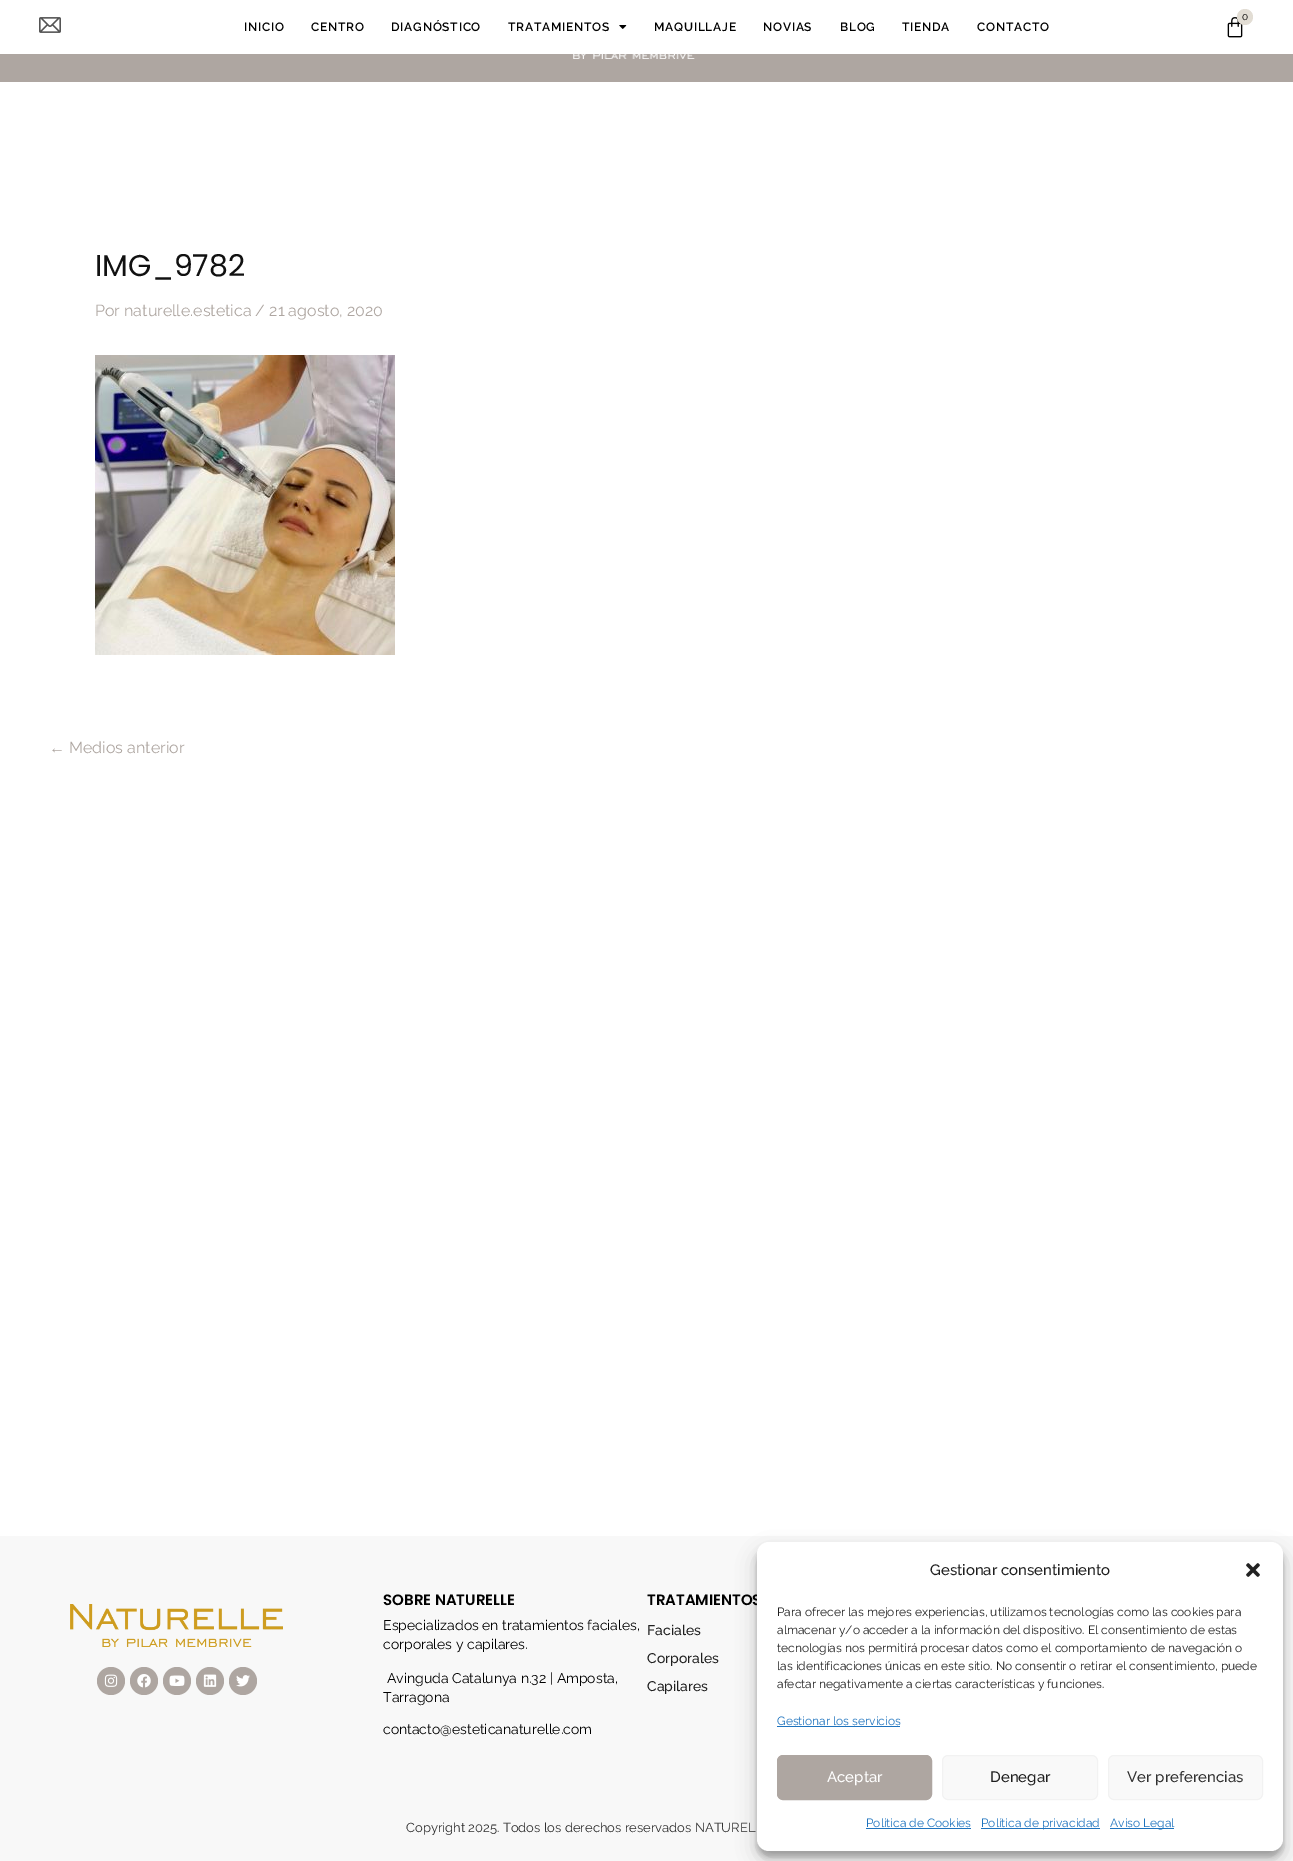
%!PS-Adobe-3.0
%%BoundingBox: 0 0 1293 1861
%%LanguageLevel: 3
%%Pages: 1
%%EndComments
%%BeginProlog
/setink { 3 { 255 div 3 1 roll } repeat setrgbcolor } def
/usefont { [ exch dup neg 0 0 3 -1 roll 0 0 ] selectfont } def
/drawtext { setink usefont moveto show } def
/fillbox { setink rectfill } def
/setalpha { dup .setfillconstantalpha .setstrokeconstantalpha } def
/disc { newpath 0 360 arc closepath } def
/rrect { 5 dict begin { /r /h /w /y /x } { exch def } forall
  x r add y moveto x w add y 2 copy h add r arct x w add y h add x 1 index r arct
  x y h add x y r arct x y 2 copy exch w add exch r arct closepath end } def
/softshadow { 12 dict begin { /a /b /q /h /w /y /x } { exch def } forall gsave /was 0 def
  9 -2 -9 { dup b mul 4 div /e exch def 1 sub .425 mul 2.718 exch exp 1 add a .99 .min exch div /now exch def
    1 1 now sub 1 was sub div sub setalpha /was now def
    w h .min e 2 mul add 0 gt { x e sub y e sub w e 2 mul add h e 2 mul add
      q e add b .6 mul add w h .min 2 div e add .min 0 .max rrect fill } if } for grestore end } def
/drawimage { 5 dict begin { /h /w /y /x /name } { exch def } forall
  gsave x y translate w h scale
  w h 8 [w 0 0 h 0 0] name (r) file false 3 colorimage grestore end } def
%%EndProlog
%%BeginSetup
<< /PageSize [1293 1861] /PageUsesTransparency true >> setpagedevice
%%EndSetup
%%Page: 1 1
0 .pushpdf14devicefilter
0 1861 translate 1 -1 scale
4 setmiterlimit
0 0 1293 1861 255 255 255 fillbox
(assets/img1.rgb) 39 17 22 16 drawimage
/Raleway-SemiBold 12 usefont
0 0 0 setink
244 31 moveto 0.75 0 (INICIO) ashow
311 31 moveto 0.75 0 (CENTRO) ashow
391 31 moveto 0.75 0 (DIAGNÓSTICO) ashow
508 31 moveto 0.75 0 (TRATAMIENTOS) ashow
(assets/img2.rgb) 619 25 8 4 drawimage
654 31 moveto 0.75 0 (MAQUILLAJE) ashow
763 31 moveto 0.75 0 (NOVIAS) ashow
840 31 moveto 0.75 0 (BLOG) ashow
902 31 moveto 0.75 0 (TIENDA) ashow
977 31 moveto 0.75 0 (CONTACTO) ashow
(assets/img3.rgb) 1227 17 16 21 drawimage
226 221 212 setink
1245 17 8 disc fill
(0) 1242 20 /Raleway-Regular 10 0 0 0 drawtext
0 54 1293 28 174 166 161 fillbox
(assets/img4.rgb) 573 54 122 5 drawimage
(IMG_9782) 95 276 /Poppins-Regular 30 17 17 17 drawtext
(Por naturelle.estetica / 21 agosto, 2020) 95 316 /Raleway-Regular 16 174 166 161 drawtext
(assets/img5.rgb) 95 355 300 300 drawimage
(←) 49 753 /LiberationSans-Regular 16 174 166 161 drawtext
(Medios anterior) 69 753 /Raleway-Regular 16 174 166 161 drawtext
0 1536 1293 325 248 248 248 fillbox
(assets/img6.rgb) 70 1604 213 43 drawimage
174 166 161 setink
111 1681 14 disc fill
(assets/img7.rgb) 104 1674 14 13 drawimage
144 1681 14 disc fill
(assets/img8.rgb) 137 1674 14 14 drawimage
177 1681 14 disc fill
(assets/img9.rgb) 169 1675 16 11 drawimage
210 1681 14 disc fill
(assets/img10.rgb) 203 1674 14 13 drawimage
243 1681 14 disc fill
(assets/img11.rgb) 236 1675 14 12 drawimage
(SOBRE NATURELLE) 383 1605 /Poppins-SemiBold 15 0 0 0 drawtext
(Especializados en tratamientos faciales,) 383 1630 /Raleway-Regular 14 0 0 0 drawtext
(corporales y capilares.) 383 1649 /Raleway-Regular 14 0 0 0 drawtext
(Avinguda Catalunya n.32 | Amposta,) 387 1683 /Raleway-Regular 14 0 0 0 drawtext
(Tarragona) 383 1702 /Raleway-Regular 14 0 0 0 drawtext
(contacto@esteticanaturelle.com) 383 1734 /Raleway-Regular 14 0 0 0 drawtext
(TRATAMIENTOS) 647 1605 /Poppins-SemiBold 15 0 0 0 drawtext
(Faciales) 647 1635 /Raleway-Medium 14 31 31 31 drawtext
(Corporales) 647 1663 /Raleway-Medium 14 31 31 31 drawtext
(Capilares) 647 1691 /Raleway-Medium 14 31 31 31 drawtext
(Copyright 2025. Todos los derechos reservados NATUREL) 406 1832 /Raleway-Regular 13 48 48 48 drawtext
0 0 0 setink
757 1548 526 309 12 3 0.23 softshadow
757 1552 526 309 12 10 0.19 softshadow
255 255 255 setink
757 1542 526 309 12 rrect fill
(Gestionar consentimiento) 930 1575 /Raleway-Medium 15 31 31 31 drawtext
(assets/img12.rgb) 1246 1563 14 14 drawimage
(Para ofrecer las mejores experiencias, utilizamos tecnologías como las cookies para) 777 1616 /Raleway-Regular 12 31 31 31 drawtext
(almacenar y/o acceder a la información del dispositivo. El consentimiento de estas) 777 1634 /Raleway-Regular 12 31 31 31 drawtext
(tecnologías nos permitirá procesar datos como el comportamiento de navegación o) 777 1652 /Raleway-Regular 12 31 31 31 drawtext
(las identificaciones únicas en este sitio. No consentir o retirar el consentimiento, puede) 777 1670 /Raleway-Regular 12 31 31 31 drawtext
(afectar negativamente a ciertas características y funciones.) 777 1688 /Raleway-Regular 12 31 31 31 drawtext
(Gestionar los servicios) 777 1725 /Raleway-Regular 12 30 115 190 drawtext
777 1726 123 1 30 115 190 fillbox
174 166 161 setink
777.5 1755.5 154 44 5.5 rrect gsave fill grestore
stroke
(Aceptar) 827 1782 /Raleway-Medium 15 255 255 255 drawtext
249 249 249 setink
942.5 1755.5 155 44 5.5 rrect gsave fill grestore
242 242 242 setink
stroke
(Denegar) 990 1782 /Raleway-Medium 15 31 31 31 drawtext
249 249 249 setink
1108.5 1755.5 154 44 5.5 rrect gsave fill grestore
242 242 242 setink
stroke
(Ver preferencias) 1127 1782 /Raleway-Medium 15 48 48 48 drawtext
(Politica de Cookies) 866 1827 /Raleway-Regular 12 30 115 190 drawtext
866 1828 105 1 30 115 190 fillbox
981 1828 119 1 30 115 190 fillbox
(Política de privacidad) 981 1827 /Raleway-Regular 12 30 115 190 drawtext
1110 1828 64 1 30 115 190 fillbox
(Aviso Legal) 1110 1827 /Raleway-Regular 12 30 115 190 drawtext
.poppdf14devicefilter showpage
%%EOF
